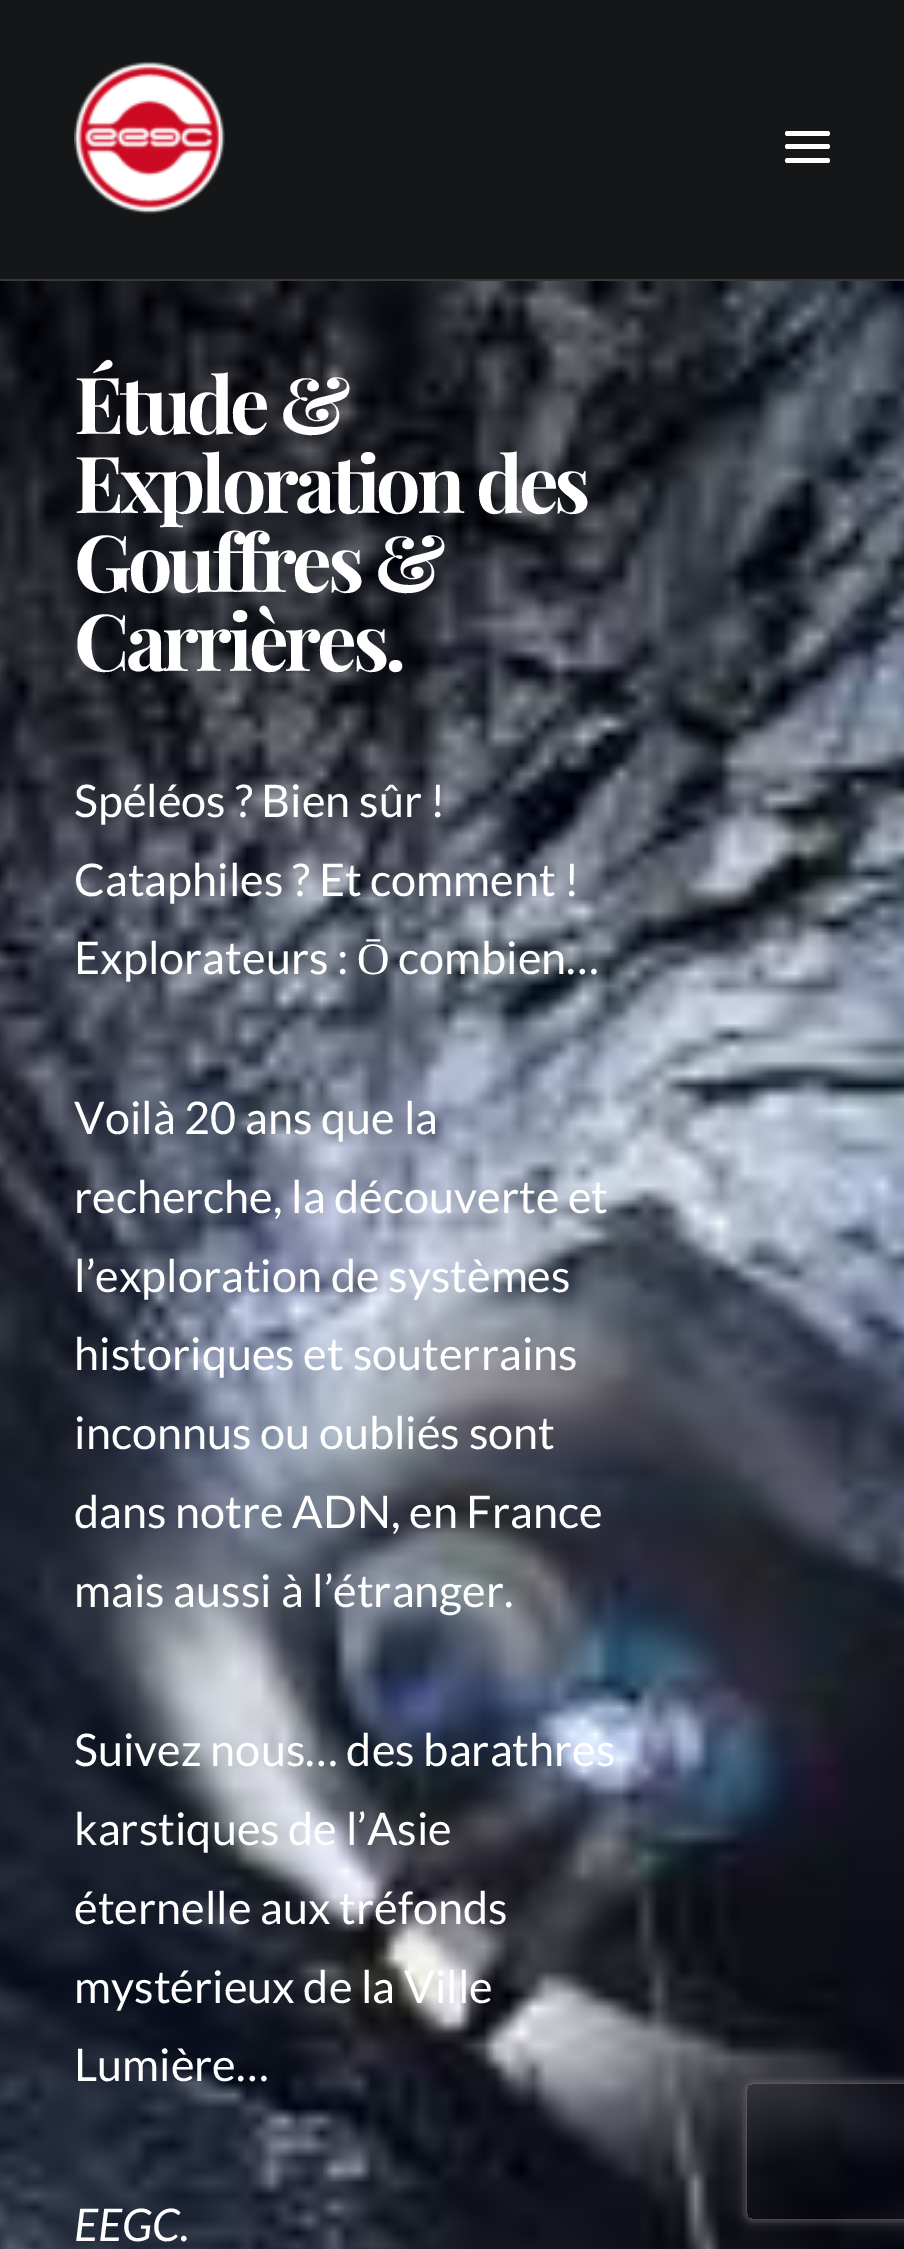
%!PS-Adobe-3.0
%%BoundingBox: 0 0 904 2249
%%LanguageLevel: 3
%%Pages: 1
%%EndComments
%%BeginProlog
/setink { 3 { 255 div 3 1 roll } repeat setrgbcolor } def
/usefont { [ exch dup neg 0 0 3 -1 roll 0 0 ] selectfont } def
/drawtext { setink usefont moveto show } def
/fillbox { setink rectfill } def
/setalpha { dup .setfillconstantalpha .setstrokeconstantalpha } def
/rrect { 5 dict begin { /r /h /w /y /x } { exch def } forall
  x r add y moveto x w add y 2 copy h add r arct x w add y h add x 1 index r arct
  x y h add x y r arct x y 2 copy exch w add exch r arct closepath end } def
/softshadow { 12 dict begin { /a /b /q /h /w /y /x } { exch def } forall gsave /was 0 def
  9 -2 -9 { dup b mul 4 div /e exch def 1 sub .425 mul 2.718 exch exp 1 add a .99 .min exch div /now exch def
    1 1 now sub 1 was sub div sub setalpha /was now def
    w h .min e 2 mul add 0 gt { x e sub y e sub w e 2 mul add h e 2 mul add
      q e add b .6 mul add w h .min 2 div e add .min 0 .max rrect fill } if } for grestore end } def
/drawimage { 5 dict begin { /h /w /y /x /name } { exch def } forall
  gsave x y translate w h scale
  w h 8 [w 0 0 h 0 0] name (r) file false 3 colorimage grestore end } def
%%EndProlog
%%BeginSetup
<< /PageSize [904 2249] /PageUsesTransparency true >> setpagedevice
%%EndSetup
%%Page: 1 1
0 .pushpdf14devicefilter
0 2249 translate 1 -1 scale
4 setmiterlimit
0 0 904 2249 255 255 255 fillbox
0 0 904 279 20 22 24 fillbox
0 279 904 2 55 57 59 fillbox
(assets/img1.rgb) 74 61 151 153 drawimage
255 255 255 setink
785 144 45 5 2.5 rrect fill
785 131 45 5 2.5 rrect fill
785 158 45 5 2.5 rrect fill
(assets/img2.rgb) 0 281 904 1968 drawimage
/PlayfairDisplay-Bold 78.75 usefont
74 434 moveto -4 0 (Étude &) ashow
74 513 moveto -4 0 (Exploration des) ashow
74 592 moveto -4 0 (Gouffres &) ashow
74 671 moveto -4 0 (Carrières.) ashow
(Spéléos ? Bien sûr !) 74 817 /Lato-Regular 45 255 255 255 drawtext
(Cataphiles ? Et comment !) 74 896 /Lato-Regular 45 255 255 255 drawtext
(Explorateurs :) 74 974 /Lato-Regular 45 255 255 255 drawtext
(Ō) 357 974 /LiberationSerif-Regular 45 255 255 255 drawtext
(combien…) 398 974 /Lato-Regular 45 255 255 255 drawtext
(Voilà 20 ans que la) 74 1134 /Lato-Regular 45 255 255 255 drawtext
(recherche, la découverte et) 74 1213 /Lato-Regular 45 255 255 255 drawtext
(l’exploration de systèmes) 74 1292 /Lato-Regular 45 255 255 255 drawtext
(historiques et souterrains) 74 1370 /Lato-Regular 45 255 255 255 drawtext
(inconnus ou oubliés sont) 74 1449 /Lato-Regular 45 255 255 255 drawtext
(dans notre ADN, en France) 74 1528 /Lato-Regular 45 255 255 255 drawtext
(mais aussi à l’étranger.) 74 1607 /Lato-Regular 45 255 255 255 drawtext
(Suivez nous… des barathres) 74 1766 /Lato-Regular 45 255 255 255 drawtext
(karstiques de l’Asie) 74 1845 /Lato-Regular 45 255 255 255 drawtext
(éternelle aux tréfonds) 74 1924 /Lato-Regular 45 255 255 255 drawtext
(mystérieux de la Ville) 74 2003 /Lato-Regular 45 255 255 255 drawtext
(Lumière…) 74 2081 /Lato-Regular 45 255 255 255 drawtext
(EEGC.) 74 2241 /Lato-Italic 45 255 255 255 drawtext
gsave
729 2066 moveto 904 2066 lineto 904 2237 lineto 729 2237 lineto closepath 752 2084 moveto 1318 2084 lineto 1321 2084 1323 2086 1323 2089 curveto 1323 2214 lineto 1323 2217 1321 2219 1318 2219 curveto 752 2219 lineto 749 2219 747 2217 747 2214 curveto 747 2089 lineto 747 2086 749 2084 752 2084 curveto closepath eoclip newpath
128 128 128 setink
747 2084 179 135 5 5.5 1 softshadow
grestore
.poppdf14devicefilter showpage
%%EOF
